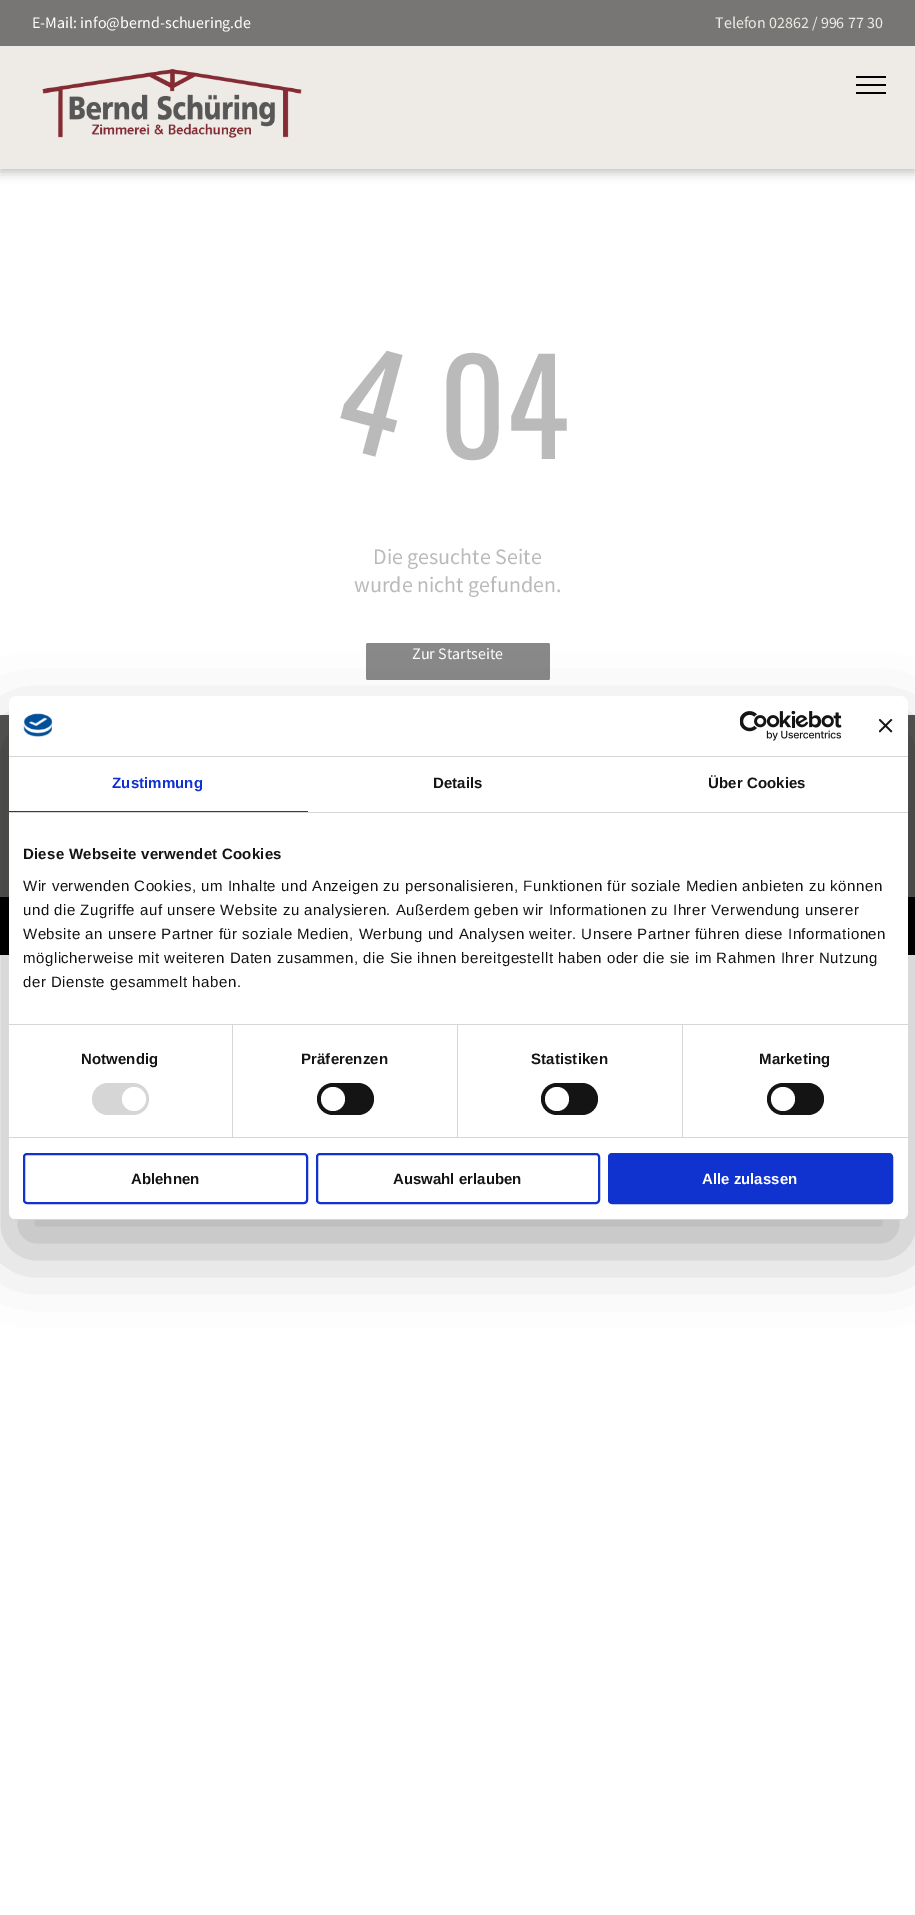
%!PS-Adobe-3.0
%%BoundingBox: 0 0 915 1915
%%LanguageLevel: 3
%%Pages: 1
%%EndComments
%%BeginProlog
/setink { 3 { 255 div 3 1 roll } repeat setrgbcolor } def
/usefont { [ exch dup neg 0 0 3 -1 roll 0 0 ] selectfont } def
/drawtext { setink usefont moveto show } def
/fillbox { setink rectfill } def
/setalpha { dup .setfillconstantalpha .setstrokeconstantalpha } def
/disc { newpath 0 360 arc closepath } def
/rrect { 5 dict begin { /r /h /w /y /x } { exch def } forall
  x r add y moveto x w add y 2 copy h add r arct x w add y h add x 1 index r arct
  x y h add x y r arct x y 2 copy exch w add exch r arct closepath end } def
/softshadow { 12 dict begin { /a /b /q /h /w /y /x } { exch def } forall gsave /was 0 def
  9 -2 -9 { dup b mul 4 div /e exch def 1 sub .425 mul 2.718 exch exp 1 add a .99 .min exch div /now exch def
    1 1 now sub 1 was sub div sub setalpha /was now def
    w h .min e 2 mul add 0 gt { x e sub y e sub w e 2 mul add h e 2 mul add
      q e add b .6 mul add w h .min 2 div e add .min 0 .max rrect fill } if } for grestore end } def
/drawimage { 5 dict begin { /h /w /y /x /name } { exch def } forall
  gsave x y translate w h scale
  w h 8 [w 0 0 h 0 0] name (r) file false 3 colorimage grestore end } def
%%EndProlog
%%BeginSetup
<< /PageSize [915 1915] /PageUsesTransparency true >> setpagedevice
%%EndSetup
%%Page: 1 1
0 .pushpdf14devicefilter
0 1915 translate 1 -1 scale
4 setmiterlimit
0 0 915 1915 255 255 255 fillbox
0 0 0 setink
0 3 915 169 0 5.5 0.25 softshadow
0 46 915 123 238 235 231 fillbox
0 0 915 46 119 118 116 fillbox
(E-Mail: info@bernd-schuering.de) 32 28 /SourceSansPro-Regular 16 255 255 255 drawtext
(Telefon 02862 / 996 77 30) 715 28 /SourceSansPro-Regular 16 238 235 231 drawtext
(assets/img1.rgb) 42 69 260 69 drawimage
856 76 30 2 0 0 0 fillbox
856 84 30 2 0 0 0 fillbox
856 92 30 2 0 0 0 fillbox
/Oswald-Regular 130 usefont
186 186 186 setink
gsave 328 444 translate 15 rotate 0 0 moveto (4) show grestore
(04) 439 459 /Oswald-Regular 130 186 186 186 drawtext
(Die gesuchte Seite) 373 564 /SourceSansPro-Regular 22 186 186 186 drawtext
(wurde nicht gefunden.) 354 592 /SourceSansPro-Regular 22 186 186 186 drawtext
137 137 137 setink
366 643 184 37 2 rrect fill
(Zur Startseite) 412 659 /SourceSansPro-Regular 16 255 255 255 drawtext
0 715 915 182 87 87 86 fillbox
0 897 915 58 0 0 0 fillbox
9 728 899 524 8 34 0.3 softshadow
255 255 255 setink
9 696 899 524 8 rrect fill
9 756 899 1 214 214 214 fillbox
(assets/img2.rgb) 23 713 30 24 drawimage
(assets/img3.rgb) 740 711 102 30 drawimage
(assets/img4.rgb) 879 719 14 14 drawimage
9 812 899 1 214 214 214 fillbox
9 811 299 1 16 50 207 fillbox
/LiberationSans-Bold 15 usefont
112 788 moveto 0.1 0 (Zustimmung) ashow
20 20 20 setink
433 788 moveto 0.1 0 (Details) ashow
708 788 moveto 0.1 0 (Über Cookies) ashow
9 1024 899 1 214 214 214 fillbox
20 20 20 setink
23 859 moveto 0.25 0 (Diese Webseite verwendet Cookies) ashow
/LiberationSans-Regular 15 usefont
23 891 moveto 0.5 0 (Wir verwenden Cookies, um Inhalte und Anzeigen zu personalisieren, Funktionen für soziale Medien anbieten zu können) ashow
23 915 moveto 0.5 0 (und die Zugriffe auf unsere Website zu analysieren. Außerdem geben wir Informationen zu Ihrer Verwendung unserer) ashow
23 939 moveto 0.5 0 (Website an unsere Partner für soziale Medien, Werbung und Analysen weiter. Unsere Partner führen diese Informationen) ashow
23 963 moveto 0.5 0 (möglicherweise mit weiteren Daten zusammen, die Sie ihnen bereitgestellt haben oder die sie im Rahmen Ihrer Nutzung) ashow
23 987 moveto 0.5 0 (der Dienste gesammelt haben.) ashow
9 1137 899 1 214 214 214 fillbox
232 1025 1 112 214 214 214 fillbox
/LiberationSans-Bold 15 usefont
20 20 20 setink
81 1064 moveto 0.1 0 (Notwendig) ashow
214 214 214 setink
92 1083 57 32 16 rrect fill
255 255 255 setink
134 1099 12 disc fill
457 1025 1 112 214 214 214 fillbox
20 20 20 setink
301 1064 moveto 0.1 0 (Präferenzen) ashow
317 1083 57 32 16 rrect fill
255 255 255 setink
333 1099 12 disc fill
682 1025 1 112 214 214 214 fillbox
20 20 20 setink
531 1064 moveto 0.1 0 (Statistiken) ashow
541 1083 57 32 16 rrect fill
255 255 255 setink
557 1099 12 disc fill
20 20 20 setink
759 1064 moveto 0.1 0 (Marketing) ashow
767 1083 57 32 16 rrect fill
255 255 255 setink
783 1099 12 disc fill
gsave
9 696 899 524 8 rrect clip newpath
9 1219 899 1 214 214 214 fillbox
grestore
16 50 207 setink
2 setlinewidth
24 1154 283 49 3 rrect stroke
(Ablehnen) 131 1184 /LiberationSans-Bold 15 20 20 20 drawtext
16 50 207 setink
317 1154 282 49 3 rrect stroke
(Auswahl erlauben) 393 1184 /LiberationSans-Bold 15 20 20 20 drawtext
16 50 207 setink
609 1154 283 49 3 rrect gsave fill grestore
stroke
(Alle zulassen) 702 1184 /LiberationSans-Bold 15 255 255 255 drawtext
.poppdf14devicefilter showpage
%%EOF
